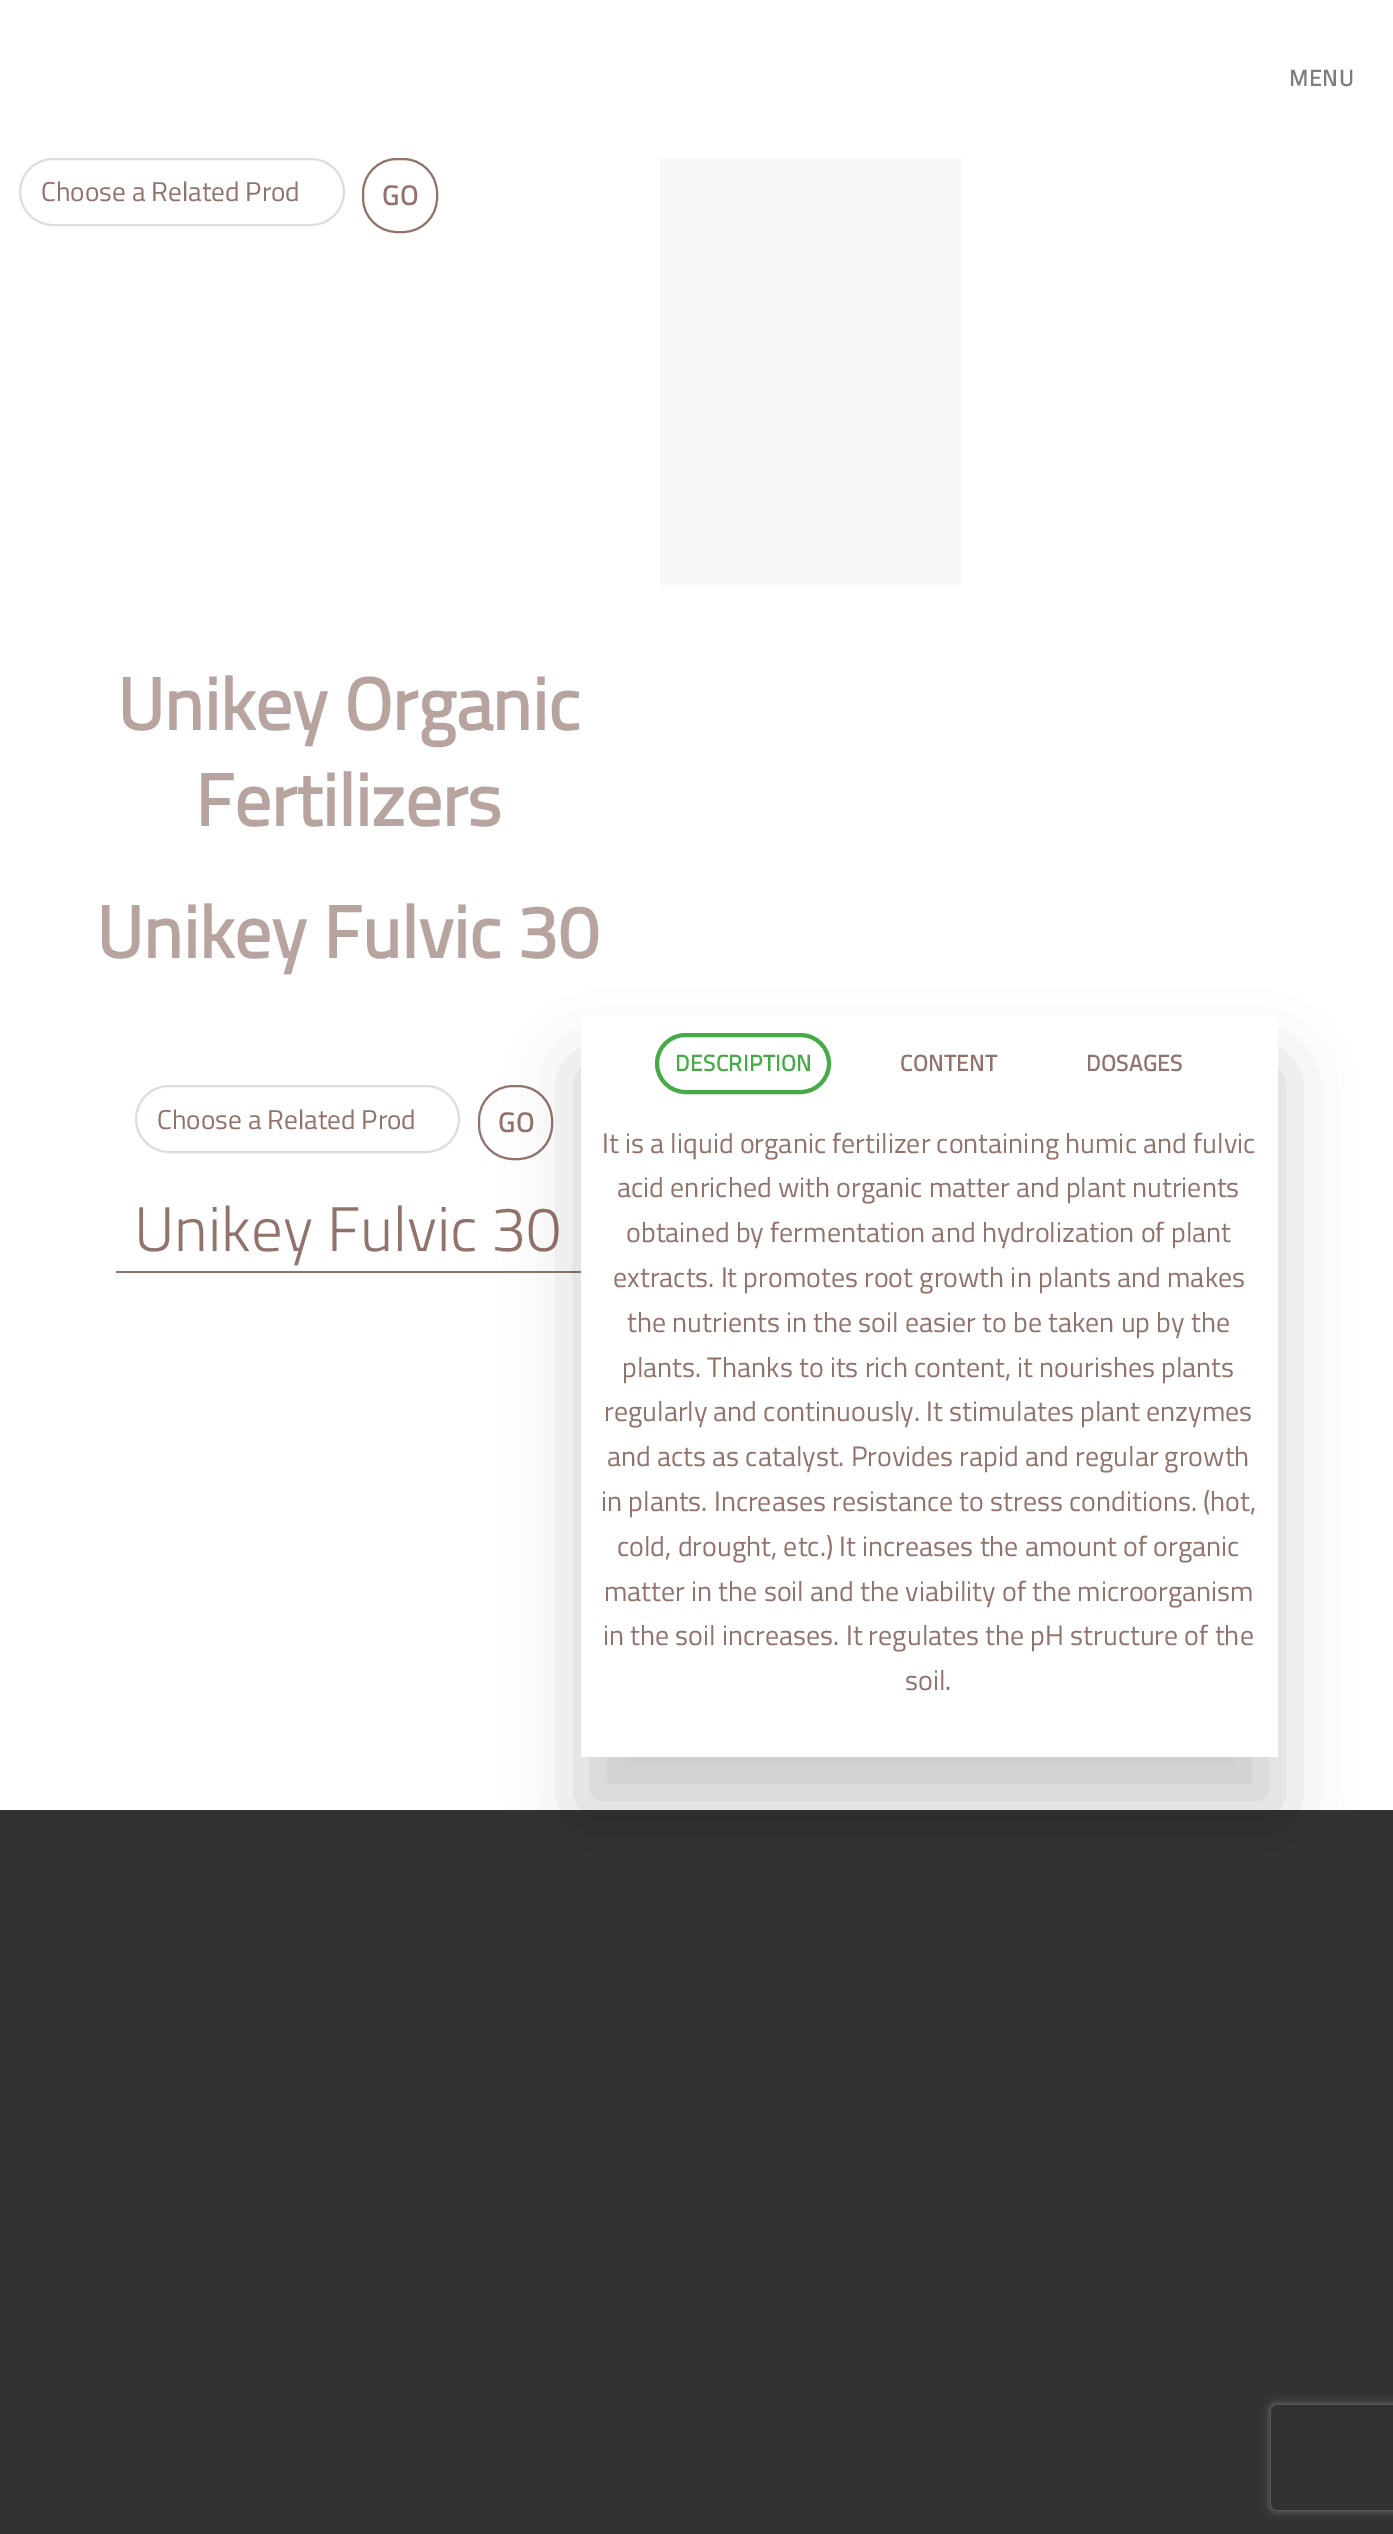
%!PS-Adobe-3.0
%%BoundingBox: 0 0 1393 2534
%%LanguageLevel: 3
%%Pages: 1
%%EndComments
%%BeginProlog
/setink { 3 { 255 div 3 1 roll } repeat setrgbcolor } def
/usefont { [ exch dup neg 0 0 3 -1 roll 0 0 ] selectfont } def
/drawtext { setink usefont moveto show } def
/fillbox { setink rectfill } def
/setalpha { dup .setfillconstantalpha .setstrokeconstantalpha } def
/rrect { 5 dict begin { /r /h /w /y /x } { exch def } forall
  x r add y moveto x w add y 2 copy h add r arct x w add y h add x 1 index r arct
  x y h add x y r arct x y 2 copy exch w add exch r arct closepath end } def
/softshadow { 12 dict begin { /a /b /q /h /w /y /x } { exch def } forall gsave /was 0 def
  9 -2 -9 { dup b mul 4 div /e exch def 1 sub .425 mul 2.718 exch exp 1 add a .99 .min exch div /now exch def
    1 1 now sub 1 was sub div sub setalpha /was now def
    w h .min e 2 mul add 0 gt { x e sub y e sub w e 2 mul add h e 2 mul add
      q e add b .6 mul add w h .min 2 div e add .min 0 .max rrect fill } if } for grestore end } def
%%EndProlog
%%BeginSetup
<< /PageSize [1393 2534] /PageUsesTransparency true >> setpagedevice
%%EndSetup
%%Page: 1 1
0 .pushpdf14devicefilter
0 2534 translate 1 -1 scale
4 setmiterlimit
0 0 1393 2534 50 50 50 fillbox
0 0 1393 1810 255 255 255 fillbox
/TitilliumWeb-Bold 22.5 usefont
125 125 125 setink
1289 86 moveto 1 0 (MENU) ashow
221 221 221 setink
2 setlinewidth
20 159 324 66 33 rrect stroke
(Choose a Related Prod) 41 201 /TitilliumWeb-Regular 27.25 145 115 107 drawtext
363 159 74 73 34 rrect stroke
/TitilliumWeb-Bold 27.25 usefont
382 205 moveto 1 0 (GO) ashow
660 158 301 427 248 248 248 fillbox
(Unikey Organic) 117 730 /TitilliumWeb-Bold 73.5 184 164 159 drawtext
(Fertilizers) 195 826 /TitilliumWeb-Bold 73.5 184 164 159 drawtext
(Unikey Fulvic 30) 96 958 /TitilliumWeb-Bold 73.5 184 164 159 drawtext
221 221 221 setink
136 1086 323 66 33 rrect stroke
(Choose a Related Prod) 157 1129 /TitilliumWeb-Regular 27.25 145 115 107 drawtext
479 1086 73 73 34 rrect stroke
/TitilliumWeb-Bold 27.25 usefont
498 1132 moveto 1 0 (GO) ashow
116 1271 465 2 145 115 107 fillbox
(Unikey Fulvic 30) 134 1251 /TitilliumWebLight-Light 63 145 115 107 drawtext
0 0 0 setink
581 1068 697 742 0 35 0.2 softshadow
581 1015 697 742 255 255 255 fillbox
70 170 72 setink
4 setlinewidth
657 1035 172 57 28.5 rrect stroke
/TitilliumWeb-Bold 22.5 usefont
675 1071 moveto 0.5 0 (DESCRIPTION) ashow
145 115 107 setink
900 1071 moveto 0.5 0 (CONTENT) ashow
1086 1071 moveto 0.5 0 (DOSAGES) ashow
(It is a liquid organic fertilizer containing humic and fulvic) 602 1153 /TitilliumWeb-Regular 28 145 115 107 drawtext
(acid enriched with organic matter and plant nutrients) 617 1197 /TitilliumWeb-Regular 28 145 115 107 drawtext
(obtained by fermentation and hydrolization of plant) 626 1242 /TitilliumWeb-Regular 28 145 115 107 drawtext
(extracts. It promotes root growth in plants and makes) 613 1287 /TitilliumWeb-Regular 28 145 115 107 drawtext
(the nutrients in the soil easier to be taken up by the) 627 1332 /TitilliumWeb-Regular 28 145 115 107 drawtext
(plants. Thanks to its rich content, it nourishes plants) 622 1377 /TitilliumWeb-Regular 28 145 115 107 drawtext
(regularly and continuously. It stimulates plant enzymes) 604 1421 /TitilliumWeb-Regular 28 145 115 107 drawtext
(and acts as catalyst. Provides rapid and regular growth) 607 1466 /TitilliumWeb-Regular 28 145 115 107 drawtext
(in plants. Increases resistance to stress conditions. \(hot,) 601 1511 /TitilliumWeb-Regular 28 145 115 107 drawtext
(cold, drought, etc.\) It increases the amount of organic) 617 1556 /TitilliumWeb-Regular 28 145 115 107 drawtext
(matter in the soil and the viability of the microorganism) 604 1601 /TitilliumWeb-Regular 28 145 115 107 drawtext
(in the soil increases. It regulates the pH structure of the) 603 1645 /TitilliumWeb-Regular 28 145 115 107 drawtext
(soil.) 905 1690 /TitilliumWeb-Regular 28 145 115 107 drawtext
gsave
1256 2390 moveto 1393 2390 lineto 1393 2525 lineto 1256 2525 lineto closepath 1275 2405 moveto 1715 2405 lineto 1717 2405 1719 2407 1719 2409 curveto 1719 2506 lineto 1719 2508 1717 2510 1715 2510 curveto 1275 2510 lineto 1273 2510 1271 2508 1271 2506 curveto 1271 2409 lineto 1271 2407 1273 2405 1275 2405 curveto closepath eoclip newpath
128 128 128 setink
1271 2405 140 105 4 4.5 1 softshadow
grestore
.poppdf14devicefilter showpage
%%EOF
